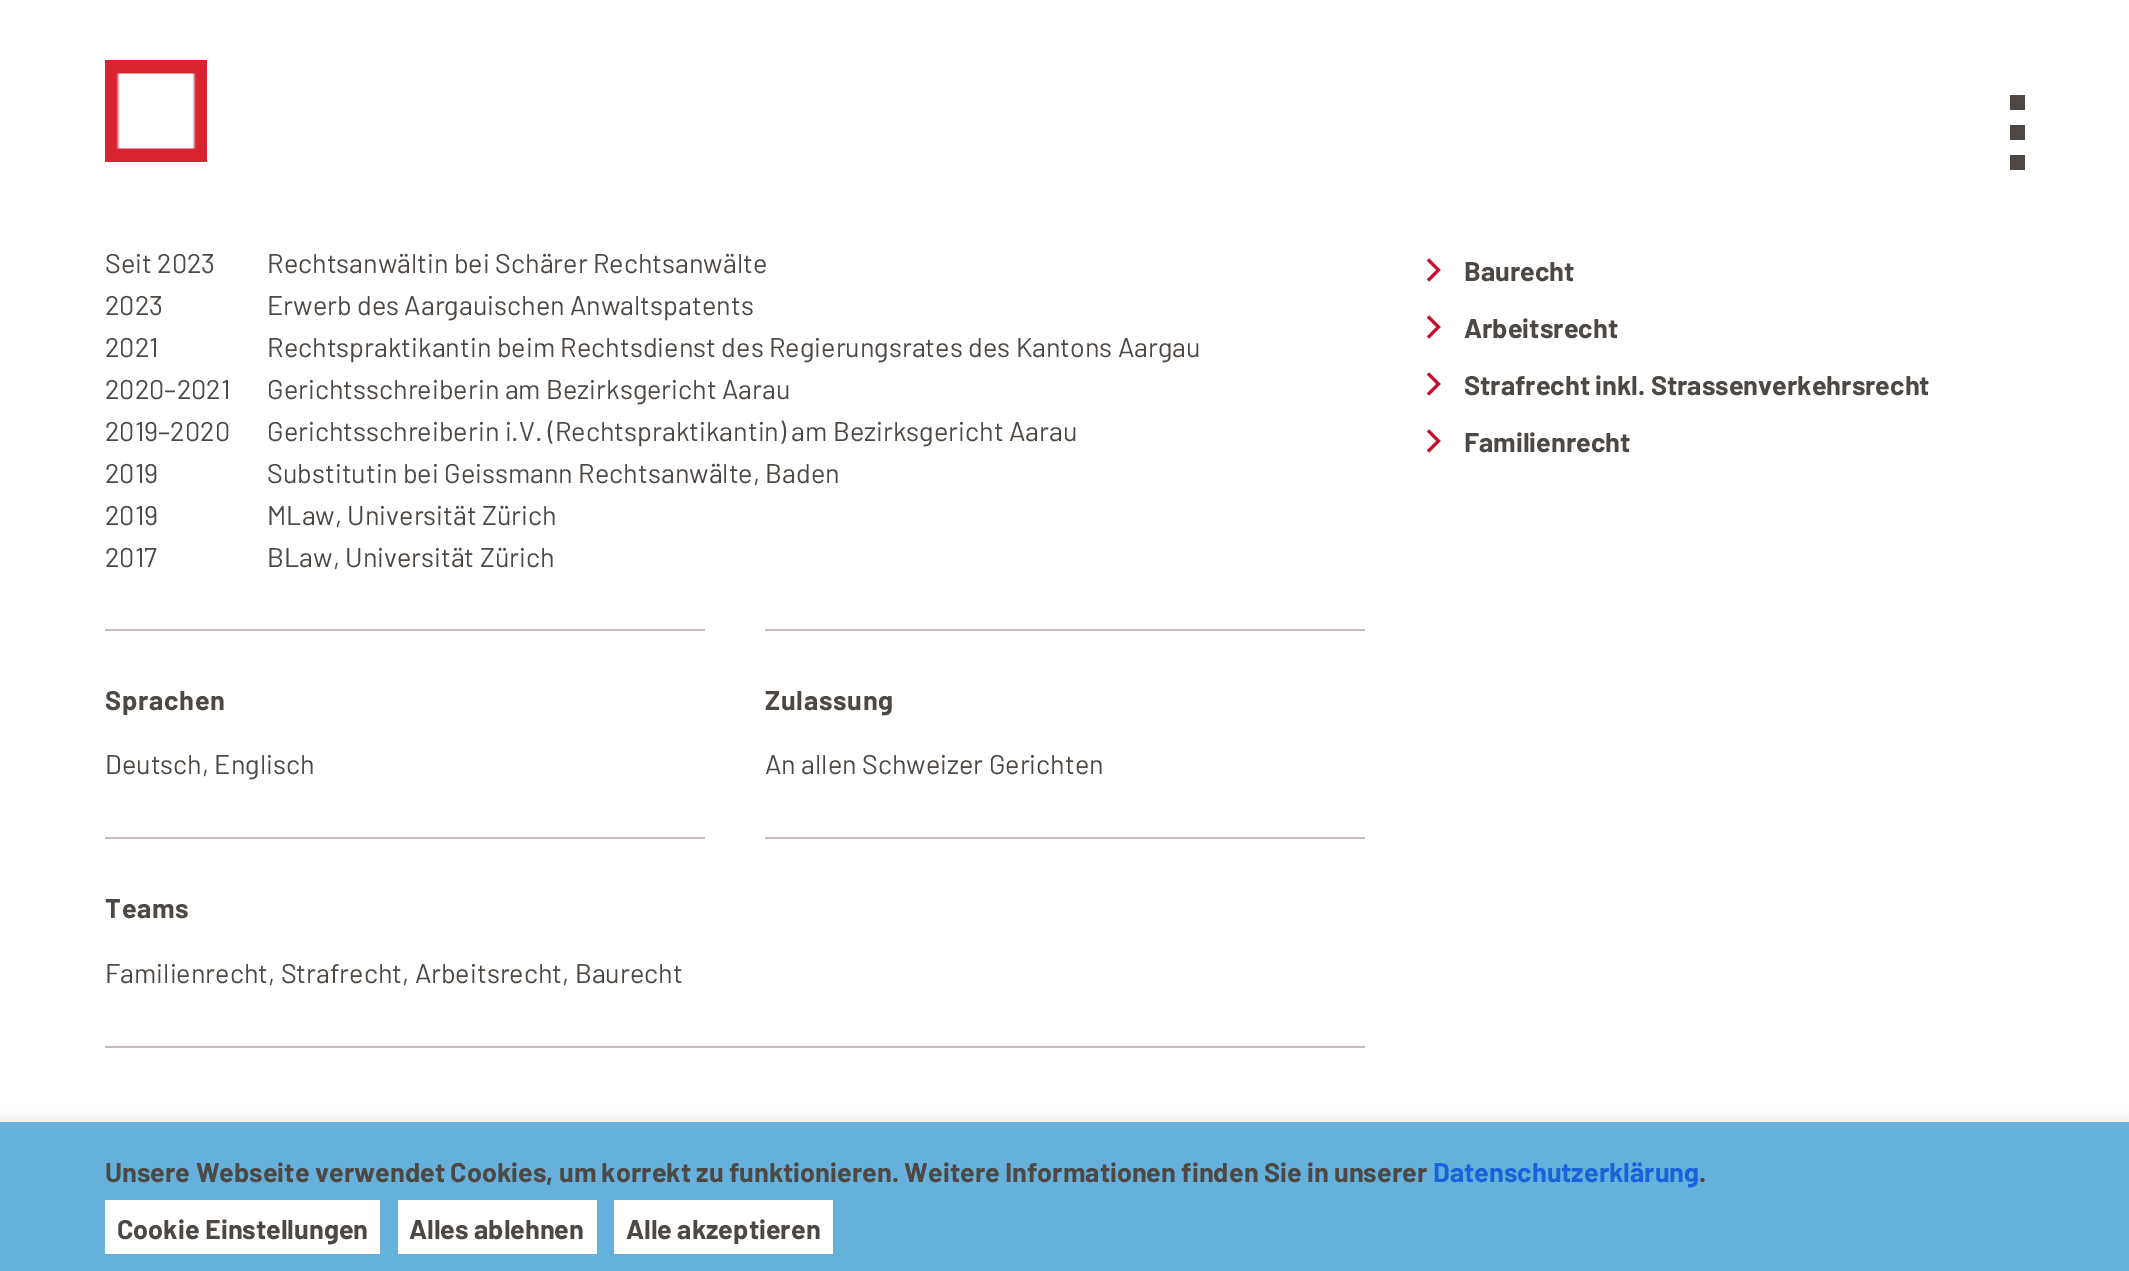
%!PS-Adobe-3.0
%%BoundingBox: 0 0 2129 1271
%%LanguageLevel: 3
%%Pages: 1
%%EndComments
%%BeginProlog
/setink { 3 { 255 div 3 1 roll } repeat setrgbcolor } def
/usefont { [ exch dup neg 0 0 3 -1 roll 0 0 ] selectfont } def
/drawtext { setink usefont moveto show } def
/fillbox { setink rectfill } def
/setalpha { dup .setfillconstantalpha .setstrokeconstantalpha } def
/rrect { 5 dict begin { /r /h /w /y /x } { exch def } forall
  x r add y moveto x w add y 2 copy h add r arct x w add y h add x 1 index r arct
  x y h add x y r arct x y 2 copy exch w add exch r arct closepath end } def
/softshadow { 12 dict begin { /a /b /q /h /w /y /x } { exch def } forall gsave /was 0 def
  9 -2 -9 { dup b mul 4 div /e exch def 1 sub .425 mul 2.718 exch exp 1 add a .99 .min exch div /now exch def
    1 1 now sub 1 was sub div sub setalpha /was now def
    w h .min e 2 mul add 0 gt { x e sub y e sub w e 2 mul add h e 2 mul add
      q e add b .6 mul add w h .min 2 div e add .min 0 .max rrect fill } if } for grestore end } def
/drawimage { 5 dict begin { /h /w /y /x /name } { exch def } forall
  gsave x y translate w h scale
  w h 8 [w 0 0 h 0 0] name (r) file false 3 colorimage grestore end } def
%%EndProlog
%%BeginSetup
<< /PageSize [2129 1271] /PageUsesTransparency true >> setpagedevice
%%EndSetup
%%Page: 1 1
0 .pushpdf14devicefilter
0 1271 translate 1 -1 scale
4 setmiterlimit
0 0 2129 1271 255 255 255 fillbox
(assets/img1.rgb) 105 60 102 102 drawimage
2010 95 15 15 77 72 68 fillbox
2010 125 15 15 77 72 68 fillbox
2010 155 15 15 77 72 68 fillbox
(Seit 2023) 105 273 /Barlow-Regular 27 77 72 68 drawtext
(Rechtsanwältin bei Schärer Rechtsanwälte) 267 273 /Barlow-Regular 27 77 72 68 drawtext
(2023) 105 315 /Barlow-Regular 27 77 72 68 drawtext
(Erwerb des Aargauischen Anwaltspatents) 267 315 /Barlow-Regular 27 77 72 68 drawtext
(2021) 105 357 /Barlow-Regular 27 77 72 68 drawtext
(Rechtspraktikantin beim Rechtsdienst des Regierungsrates des Kantons Aargau) 267 357 /Barlow-Regular 27 77 72 68 drawtext
(2020–2021) 105 399 /Barlow-Regular 27 77 72 68 drawtext
(Gerichtsschreiberin am Bezirksgericht Aarau) 267 399 /Barlow-Regular 27 77 72 68 drawtext
(2019–2020) 105 441 /Barlow-Regular 27 77 72 68 drawtext
(Gerichtsschreiberin i.V. \(Rechtspraktikantin\) am Bezirksgericht Aarau) 267 441 /Barlow-Regular 27 77 72 68 drawtext
(2019) 105 483 /Barlow-Regular 27 77 72 68 drawtext
(Substitutin bei Geissmann Rechtsanwälte, Baden) 267 483 /Barlow-Regular 27 77 72 68 drawtext
(2019) 105 525 /Barlow-Regular 27 77 72 68 drawtext
(MLaw, Universität Zürich) 267 525 /Barlow-Regular 27 77 72 68 drawtext
(2017) 105 567 /Barlow-Regular 27 77 72 68 drawtext
(BLaw, Universität Zürich) 267 567 /Barlow-Regular 27 77 72 68 drawtext
105 629 600 2 199 189 186 fillbox
105 837 600 2 199 189 186 fillbox
/Barlow-Bold 27 usefont
77 72 68 setink
105 710 moveto 0.75 0 (Sprachen) ashow
(Deutsch, Englisch) 105 774 /Barlow-Regular 27 77 72 68 drawtext
765 629 600 2 199 189 186 fillbox
765 837 600 2 199 189 186 fillbox
/Barlow-Bold 27 usefont
77 72 68 setink
765 710 moveto 0.75 0 (Zulassung) ashow
(An allen Schweizer Gerichten) 765 774 /Barlow-Regular 27 77 72 68 drawtext
105 1046 1260 2 199 189 186 fillbox
/Barlow-Bold 27 usefont
77 72 68 setink
105 918 moveto 0.75 0 (Teams) ashow
(Familienrecht, Strafrecht, Arbeitsrecht, Baurecht) 105 983 /Barlow-Regular 27 77 72 68 drawtext
200 16 46 setink
3 setlinewidth
1428 259.5 moveto 1438.5 270 lineto 1428 280.5 lineto stroke
(Baurecht) 1464 281 /Barlow-Bold 27 77 72 68 drawtext
200 16 46 setink
1428 316.5 moveto 1438.5 327 lineto 1428 337.5 lineto stroke
(Arbeitsrecht) 1464 338 /Barlow-Bold 27 77 72 68 drawtext
200 16 46 setink
1428 373.5 moveto 1438.5 384 lineto 1428 394.5 lineto stroke
(Strafrecht inkl. Strassenverkehrsrecht) 1464 395 /Barlow-Bold 27 77 72 68 drawtext
200 16 46 setink
1428 430.5 moveto 1438.5 441 lineto 1428 451.5 lineto stroke
(Familienrecht) 1464 452 /Barlow-Bold 27 77 72 68 drawtext
172 171 171 setink
0 1121 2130 150 0 7.5 0.3 softshadow
0 1122 2129 149 102 177 219 fillbox
(Unsere Webseite verwendet Cookies, um korrekt zu funktionieren. Weitere Informationen finden Sie in unserer) 105 1182 /Barlow-Bold 27 77 72 68 drawtext
(Datenschutzerklärung) 1433 1182 /Barlow-Bold 27 24 99 220 drawtext
(.) 1699 1182 /Barlow-Bold 27 77 72 68 drawtext
105 1200 275 54 255 255 255 fillbox
(Cookie Einstellungen) 117 1239 /Barlow-Bold 27 77 72 68 drawtext
398 1200 199 54 255 255 255 fillbox
(Alles ablehnen) 409 1239 /Barlow-Bold 27 77 72 68 drawtext
614 1200 219 54 255 255 255 fillbox
(Alle akzeptieren) 626 1239 /Barlow-Bold 27 77 72 68 drawtext
.poppdf14devicefilter showpage
%%EOF
